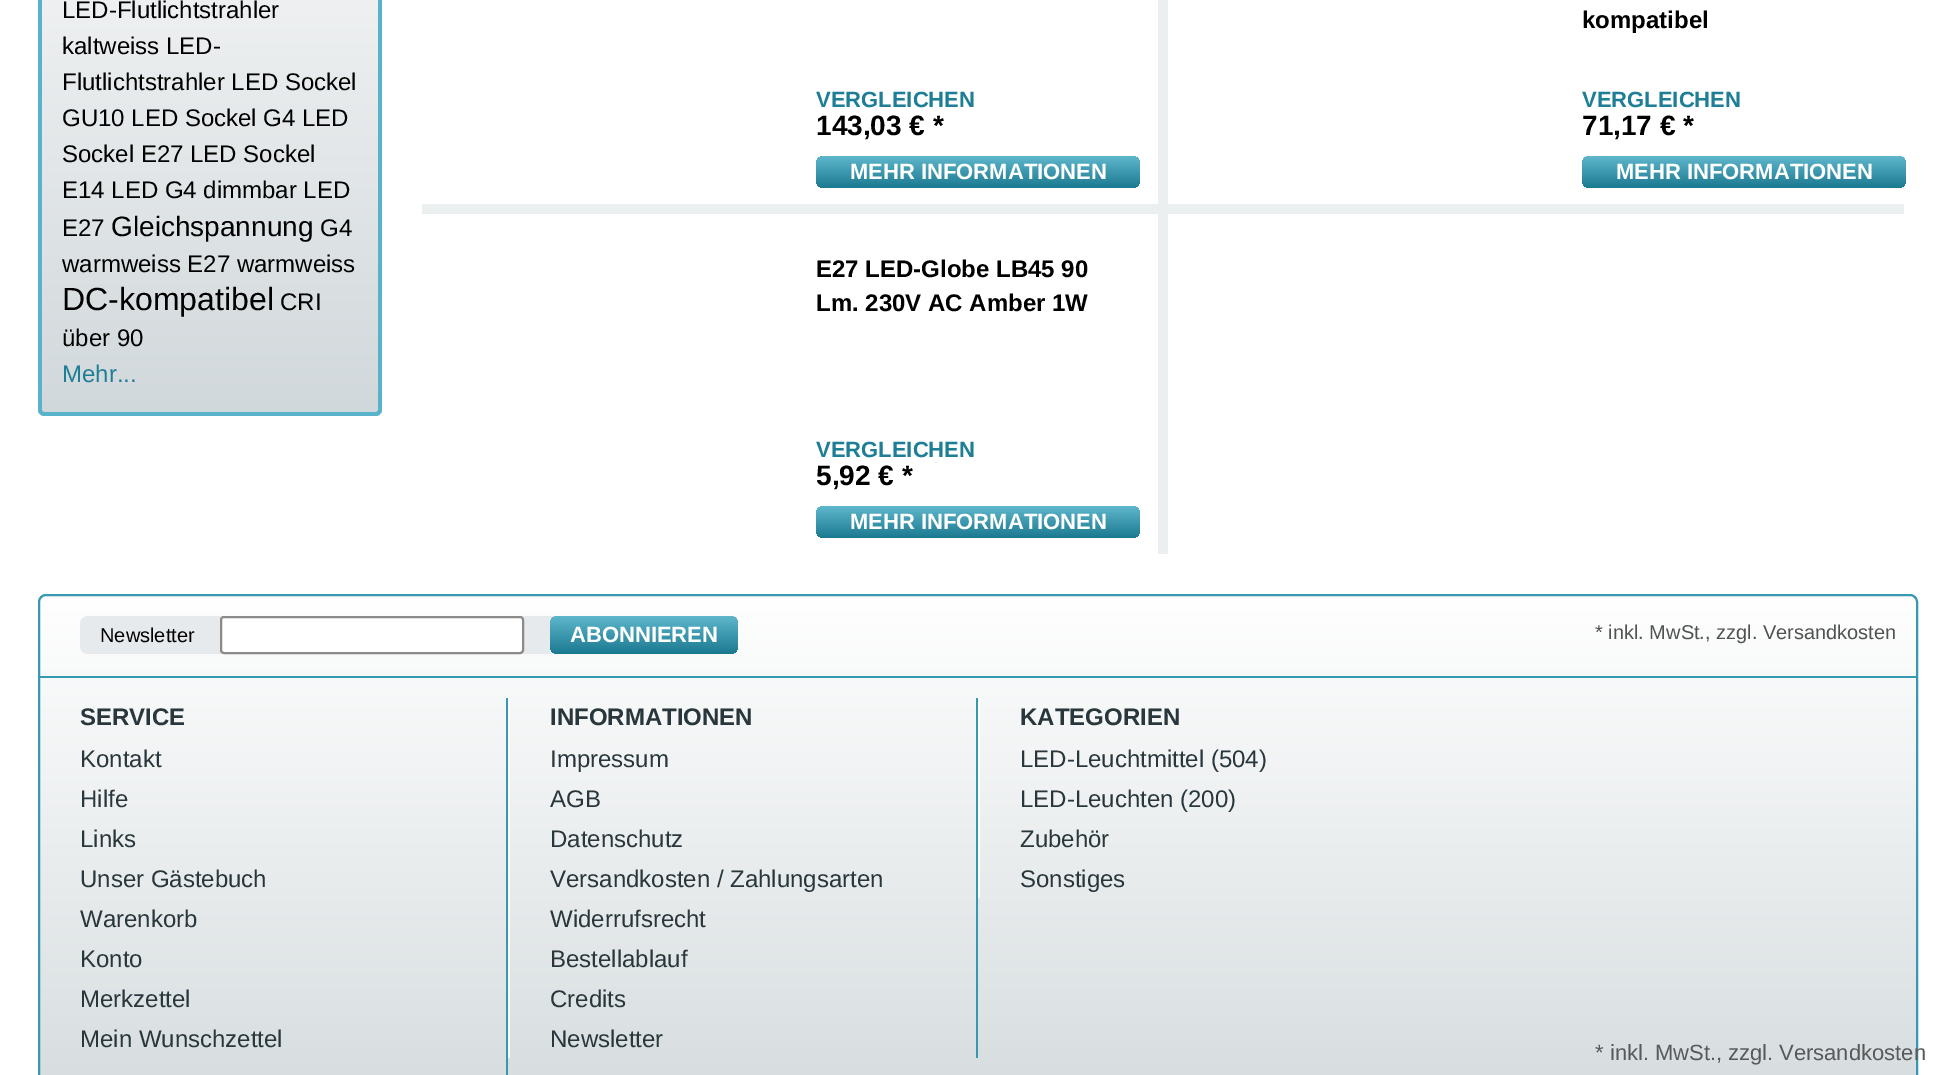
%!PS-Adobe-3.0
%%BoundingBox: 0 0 1956 1075
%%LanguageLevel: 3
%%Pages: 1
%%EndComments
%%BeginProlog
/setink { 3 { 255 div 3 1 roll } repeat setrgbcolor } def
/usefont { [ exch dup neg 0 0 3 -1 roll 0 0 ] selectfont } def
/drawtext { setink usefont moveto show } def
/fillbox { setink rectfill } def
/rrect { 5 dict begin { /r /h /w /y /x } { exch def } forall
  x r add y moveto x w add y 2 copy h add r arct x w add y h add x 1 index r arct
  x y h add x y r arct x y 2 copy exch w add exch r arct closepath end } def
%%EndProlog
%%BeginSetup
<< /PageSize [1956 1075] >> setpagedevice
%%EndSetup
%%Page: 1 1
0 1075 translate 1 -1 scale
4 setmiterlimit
0 0 1956 1075 255 255 255 fillbox
gsave 44 -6 moveto 376 -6 lineto 379.5 -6 382 -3.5 382 0 curveto 382 412 lineto 38 412 lineto 38 0 lineto 38 -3.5 40.5 -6 44 -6 curveto closepath clip newpath
<< /ShadingType 2 /ColorSpace /DeviceRGB /Coords [210 -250 210 412] /Extend [true true] /Function << /FunctionType 2 /Domain [0 1] /C0 [1 1 1] /C1 [0.82 0.847 0.859] /N 1 >> >> shfill grestore
88 179 202 setink
44 -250 moveto 376 -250 lineto 379 -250 382 -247 382 -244 curveto 382 410 lineto 382 413 379 416 376 416 curveto 44 416 lineto 41 416 38 413 38 410 curveto 38 -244 lineto 38 -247 41 -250 44 -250 curveto closepath 44 -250 moveto 376 -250 lineto 377 -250 378 -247 378 -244 curveto 378 410 lineto 378 411 377 412 376 412 curveto 44 412 lineto 43 412 42 411 42 410 curveto 42 -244 lineto 42 -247 43 -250 44 -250 curveto closepath eofill
(LED-Flutlichtstrahler) 62 18 /LiberationSans-Regular 24 0 0 0 drawtext
(kaltweiss LED-) 62 54 /LiberationSans-Regular 24 0 0 0 drawtext
(Flutlichtstrahler LED Sockel) 62 90 /LiberationSans-Regular 24 0 0 0 drawtext
(GU10 LED Sockel G4 LED) 62 126 /LiberationSans-Regular 24 0 0 0 drawtext
(Sockel E27 LED Sockel) 62 162 /LiberationSans-Regular 24 0 0 0 drawtext
(E14 LED G4 dimmbar LED) 62 198 /LiberationSans-Regular 24 0 0 0 drawtext
(E27) 62 236 /LiberationSans-Regular 24 0 0 0 drawtext
(Gleichspannung) 111 236 /LiberationSans-Regular 28 0 0 0 drawtext
(G4) 320 236 /LiberationSans-Regular 24 0 0 0 drawtext
(warmweiss E27 warmweiss) 62 272 /LiberationSans-Regular 24 0 0 0 drawtext
(DC-kompatibel) 62 310 /LiberationSans-Regular 32 0 0 0 drawtext
(CRI) 280 310 /LiberationSans-Regular 24 0 0 0 drawtext
(über 90) 62 346 /LiberationSans-Regular 24 0 0 0 drawtext
(Mehr...) 62 382 /LiberationSans-Regular 24 29 126 150 drawtext
1158 0 10 554 236 239 240 fillbox
(VERGLEICHEN) 816 107 /LiberationSans-Bold 22 29 126 150 drawtext
(143,03 € *) 816 135 /LiberationSans-Bold 28 0 0 0 drawtext
gsave 816 156 324 32 8 rrect clip newpath
<< /ShadingType 2 /ColorSpace /DeviceRGB /Coords [978 156 978 188] /Extend [true true] /Function << /FunctionType 2 /Domain [0 1] /C0 [0.373 0.718 0.8] /C1 [0.102 0.475 0.565] /N 1 >> >> shfill grestore
(MEHR INFORMATIONEN) 850 179 /LiberationSans-Bold 22 255 255 255 drawtext
(kompatibel) 1582 28 /LiberationSans-Bold 24 0 0 0 drawtext
(VERGLEICHEN) 1582 107 /LiberationSans-Bold 22 29 126 150 drawtext
(71,17 € *) 1582 135 /LiberationSans-Bold 28 0 0 0 drawtext
gsave 1582 156 324 32 8 rrect clip newpath
<< /ShadingType 2 /ColorSpace /DeviceRGB /Coords [1744 156 1744 188] /Extend [true true] /Function << /FunctionType 2 /Domain [0 1] /C0 [0.373 0.718 0.8] /C1 [0.102 0.475 0.565] /N 1 >> >> shfill grestore
(MEHR INFORMATIONEN) 1616 179 /LiberationSans-Bold 22 255 255 255 drawtext
1168 204 736 10 236 239 240 fillbox
422 204 736 10 236 239 240 fillbox
(E27 LED-Globe LB45 90) 816 277 /LiberationSans-Bold 24 0 0 0 drawtext
(Lm. 230V AC Amber 1W) 816 311 /LiberationSans-Bold 24 0 0 0 drawtext
(VERGLEICHEN) 816 457 /LiberationSans-Bold 22 29 126 150 drawtext
(5,92 € *) 816 485 /LiberationSans-Bold 28 0 0 0 drawtext
gsave 816 506 324 32 8 rrect clip newpath
<< /ShadingType 2 /ColorSpace /DeviceRGB /Coords [978 506 978 538] /Extend [true true] /Function << /FunctionType 2 /Domain [0 1] /C0 [0.373 0.718 0.8] /C1 [0.102 0.475 0.565] /N 1 >> >> shfill grestore
(MEHR INFORMATIONEN) 850 529 /LiberationSans-Bold 22 255 255 255 drawtext
gsave
38 594 1880 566 8 rrect clip newpath
gsave 38 596 moveto 1918 596 lineto 1918 1075 lineto 38 1075 lineto closepath clip newpath
<< /ShadingType 2 /ColorSpace /DeviceRGB /Coords [978 596 978 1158] /Extend [true true] /Function << /FunctionType 2 /Domain [0 1] /C0 [1 1 1] /C1 [0.82 0.847 0.859] /N 1 >> >> shfill grestore
grestore
55 153 177 setink
2 setlinewidth
39 595 1878 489 7 rrect stroke
40 676 1876 2 55 153 177 fillbox
231 234 236 setink
80 616 658 38 8 rrect fill
(Newsletter) 100 642 /LiberationSans-Regular 20 0 0 0 drawtext
255 255 255 setink
221 617 302 36 3 rrect gsave fill grestore
140 137 137 setink
stroke
gsave 550 616 188 38 8 rrect clip newpath
<< /ShadingType 2 /ColorSpace /DeviceRGB /Coords [644 616 644 654] /Extend [true true] /Function << /FunctionType 2 /Domain [0 1] /C0 [0.373 0.718 0.8] /C1 [0.102 0.475 0.565] /N 1 >> >> shfill grestore
(ABONNIEREN) 570 642 /LiberationSans-Bold 22 255 255 255 drawtext
(* inkl. MwSt., zzgl. Versandkosten) 1595 639 /LiberationSans-Regular 20 81 83 83 drawtext
506 698 2 377 55 153 177 fillbox
(SERVICE) 80 725 /LiberationSans-Bold 24 41 55 60 drawtext
(Kontakt) 80 767 /LiberationSans-Regular 24 41 55 60 drawtext
(Hilfe) 80 807 /LiberationSans-Regular 24 41 55 60 drawtext
(Links) 80 847 /LiberationSans-Regular 24 41 55 60 drawtext
(Unser Gästebuch) 80 887 /LiberationSans-Regular 24 41 55 60 drawtext
(Warenkorb) 80 927 /LiberationSans-Regular 24 41 55 60 drawtext
(Konto) 80 967 /LiberationSans-Regular 24 41 55 60 drawtext
(Merkzettel) 80 1007 /LiberationSans-Regular 24 41 55 60 drawtext
(Mein Wunschzettel) 80 1047 /LiberationSans-Regular 24 41 55 60 drawtext
976 698 2 360 55 153 177 fillbox
508 698 2 360 255 255 255 fillbox
(INFORMATIONEN) 550 725 /LiberationSans-Bold 24 41 55 60 drawtext
(Impressum) 550 767 /LiberationSans-Regular 24 41 55 60 drawtext
(AGB) 550 807 /LiberationSans-Regular 24 41 55 60 drawtext
(Datenschutz) 550 847 /LiberationSans-Regular 24 41 55 60 drawtext
(Versandkosten / Zahlungsarten) 550 887 /LiberationSans-Regular 24 41 55 60 drawtext
(Widerrufsrecht) 550 927 /LiberationSans-Regular 24 41 55 60 drawtext
(Bestellablauf) 550 967 /LiberationSans-Regular 24 41 55 60 drawtext
(Credits) 550 1007 /LiberationSans-Regular 24 41 55 60 drawtext
(Newsletter) 550 1047 /LiberationSans-Regular 24 41 55 60 drawtext
978 698 2 200 255 255 255 fillbox
(KATEGORIEN) 1020 725 /LiberationSans-Bold 24 41 55 60 drawtext
(LED-Leuchtmittel \(504\)) 1020 767 /LiberationSans-Regular 24 41 55 60 drawtext
(LED-Leuchten \(200\)) 1020 807 /LiberationSans-Regular 24 41 55 60 drawtext
(Zubehör) 1020 847 /LiberationSans-Regular 24 41 55 60 drawtext
(Sonstiges) 1020 887 /LiberationSans-Regular 24 41 55 60 drawtext
(* inkl. MwSt., zzgl.) 1595 1060 /LiberationSans-Regular 22 87 89 90 drawtext
(Versandkosten) 1779 1060 /LiberationSans-Regular 22 87 89 90 drawtext
showpage
%%EOF
